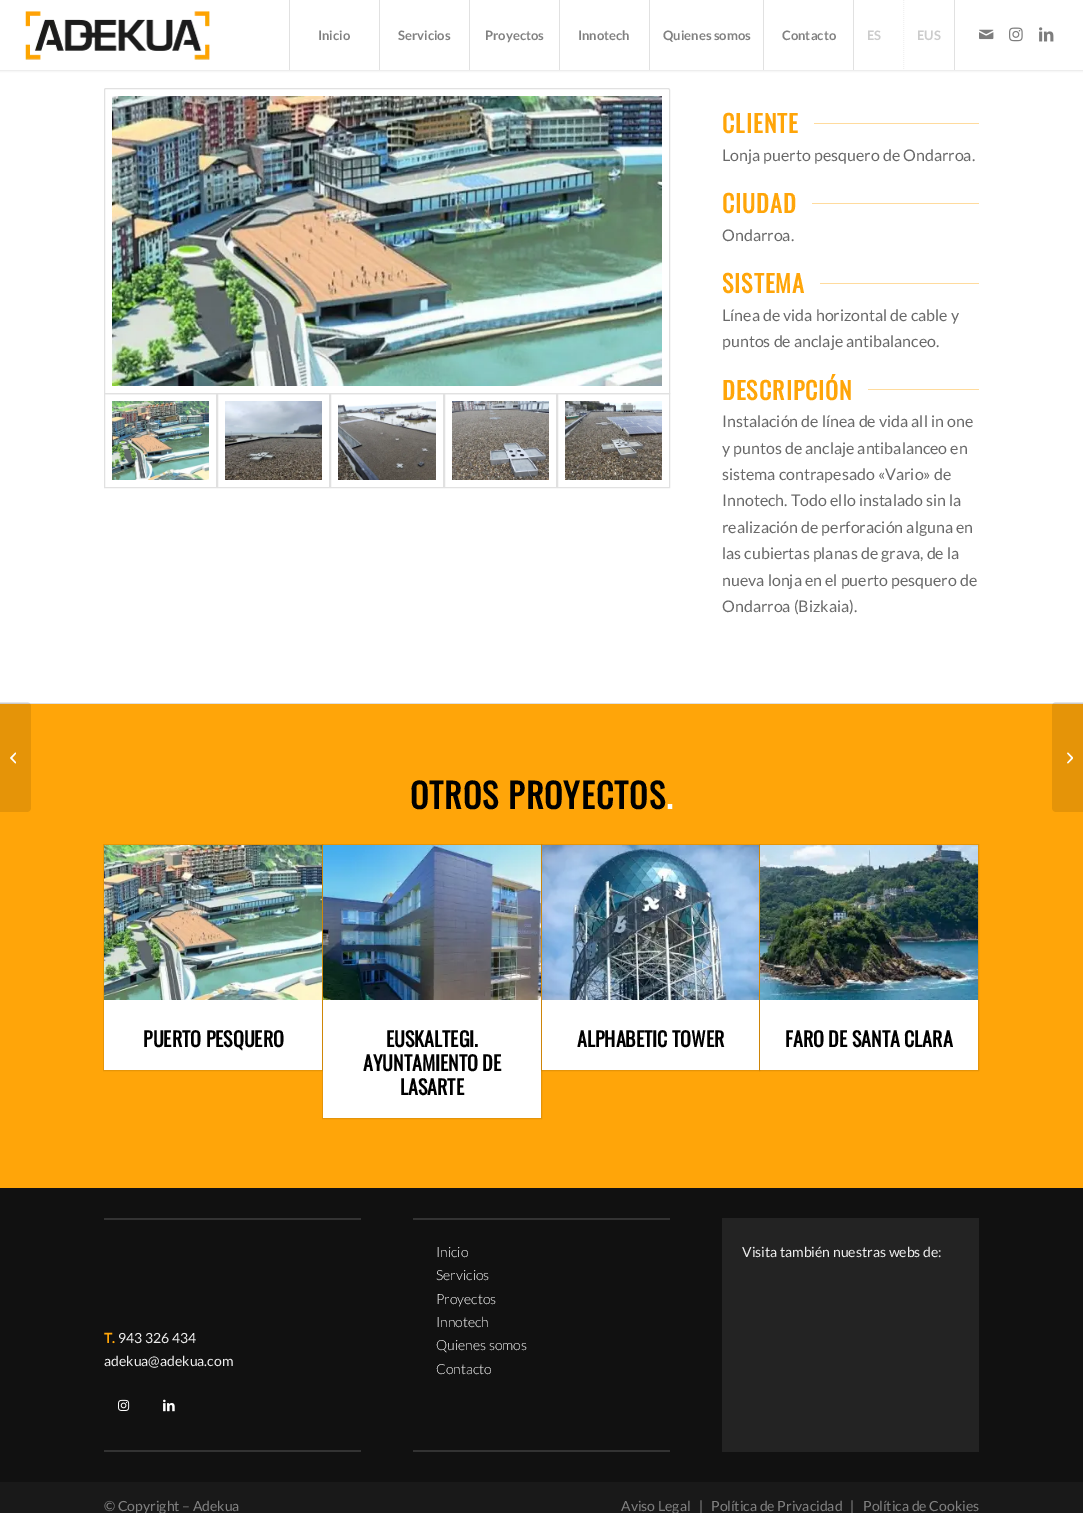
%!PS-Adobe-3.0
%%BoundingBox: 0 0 1083 1513
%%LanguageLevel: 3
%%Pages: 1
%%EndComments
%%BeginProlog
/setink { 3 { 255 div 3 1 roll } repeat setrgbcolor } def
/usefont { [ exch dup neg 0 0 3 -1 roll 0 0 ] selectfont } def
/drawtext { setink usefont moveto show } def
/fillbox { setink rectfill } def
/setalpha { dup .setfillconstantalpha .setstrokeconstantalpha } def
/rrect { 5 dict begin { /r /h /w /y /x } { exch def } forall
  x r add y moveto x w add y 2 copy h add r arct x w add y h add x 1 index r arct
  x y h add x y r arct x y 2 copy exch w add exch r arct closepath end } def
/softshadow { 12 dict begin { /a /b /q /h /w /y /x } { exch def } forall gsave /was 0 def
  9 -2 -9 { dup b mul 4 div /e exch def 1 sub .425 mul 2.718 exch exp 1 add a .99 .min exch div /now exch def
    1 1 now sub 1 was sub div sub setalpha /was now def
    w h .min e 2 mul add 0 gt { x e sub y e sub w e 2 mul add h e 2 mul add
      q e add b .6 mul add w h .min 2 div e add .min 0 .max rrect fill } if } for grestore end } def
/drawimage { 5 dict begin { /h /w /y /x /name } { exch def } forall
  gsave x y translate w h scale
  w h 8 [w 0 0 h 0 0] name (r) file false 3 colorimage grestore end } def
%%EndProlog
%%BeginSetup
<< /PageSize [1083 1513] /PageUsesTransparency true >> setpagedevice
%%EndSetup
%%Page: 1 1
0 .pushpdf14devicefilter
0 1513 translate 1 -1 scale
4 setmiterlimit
0 0 1083 1513 255 255 255 fillbox
0 0 0 setink
-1 -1 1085 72 0 1 0.1 softshadow
0 0 1083 70 255 255 255 fillbox
(assets/img1.rgb) 25 11 185 49 drawimage
289 0 1 70 225 225 225 fillbox
(Inicio) 318 40 /Lato-Bold 13 129 129 129 drawtext
379 0 1 70 225 225 225 fillbox
(Servicios) 398 40 /Lato-Bold 13 129 129 129 drawtext
469 0 1 70 225 225 225 fillbox
(Proyectos) 485 40 /Lato-Bold 13 129 129 129 drawtext
559 0 1 70 225 225 225 fillbox
(Innotech) 578 40 /Lato-Bold 13 129 129 129 drawtext
649 0 1 70 225 225 225 fillbox
(Quienes somos) 663 40 /Lato-Bold 13 129 129 129 drawtext
763 0 1 70 225 225 225 fillbox
(Contacto) 782 40 /Lato-Bold 13 129 129 129 drawtext
853 0 1 70 225 225 225 fillbox
(ES) 867 40 /Lato-Bold 13 204 204 204 drawtext
954 0 1 70 225 225 225 fillbox
241 241 241 setink
[1 1] 0 setdash
903.5 0 moveto 903.5 70 lineto stroke
(EUS) 917 40 /Lato-Bold 13 204 204 204 drawtext
(assets/img2.rgb) 979 29 15 11 drawimage
(assets/img3.rgb) 1009 27 14 15 drawimage
(assets/img4.rgb) 1039 27 15 15 drawimage
0 704 1083 484 255 165 9 fillbox
0 703 1083 1 225 225 225 fillbox
0.1 setalpha
0 0 0 setink
0 702 moveto 27 702 lineto 29 702 31 704 31 706 curveto 31 808 lineto 31 810 29 812 27 812 curveto 0 812 lineto closepath fill
1 setalpha
(assets/img5.rgb) 10 752 6 12 drawimage
225 225 225 setink
[] 0 setdash
104.5 393.5 112 94 rectstroke
217.5 393.5 112 94 rectstroke
330.5 393.5 113 94 rectstroke
444.5 393.5 112 94 rectstroke
557.5 393.5 112 94 rectstroke
255 255 255 setink
106 88.5 moveto 668 88.5 lineto 669 88.5 669.5 89 669.5 90 curveto 669.5 393.5 lineto 104.5 393.5 lineto 104.5 90 lineto 104.5 89 105 88.5 106 88.5 curveto closepath gsave fill grestore
225 225 225 setink
stroke
(assets/img6.rgb) 112 96 550 290 drawimage
(assets/img7.rgb) 112 401 97 79 drawimage
(assets/img8.rgb) 225 401 97 79 drawimage
(assets/img9.rgb) 338 401 98 79 drawimage
(assets/img10.rgb) 452 401 97 79 drawimage
(assets/img11.rgb) 565 401 97 79 drawimage
/Oswald-Bold 24 usefont
255 165 9 setink
722 133 moveto 1 0 (CLIENTE) ashow
814 123 165 1 255 219 157 fillbox
(Lonja puerto pesquero de Ondarroa.) 722 161 /Lato-Regular 16 105 105 105 drawtext
/Oswald-Bold 24 usefont
255 165 9 setink
722 213 moveto 1 0 (CIUDAD) ashow
812 203 167 1 255 219 157 fillbox
(Ondarroa.) 722 241 /Lato-Regular 16 105 105 105 drawtext
/Oswald-Bold 24 usefont
255 165 9 setink
722 293 moveto 1 0 (SISTEMA) ashow
820 283 159 1 255 219 157 fillbox
(Línea de vida horizontal de cable y) 722 321 /Lato-Regular 16 105 105 105 drawtext
(puntos de anclaje antibalanceo.) 722 347 /Lato-Regular 16 105 105 105 drawtext
/Oswald-Bold 24 usefont
255 165 9 setink
722 400 moveto 1 0 (DESCRIPCIÓN) ashow
868 389 111 1 255 219 157 fillbox
(Instalación de línea de vida all in one) 722 427 /Lato-Regular 16 105 105 105 drawtext
(y puntos de anclaje antibalanceo en) 722 454 /Lato-Regular 16 105 105 105 drawtext
(sistema contrapesado «Vario» de) 722 480 /Lato-Regular 16 105 105 105 drawtext
(Innotech. Todo ello instalado sin la) 722 506 /Lato-Regular 16 105 105 105 drawtext
(realización de perforación alguna en) 722 533 /Lato-Regular 16 105 105 105 drawtext
(las cubiertas planas de grava, de la) 722 559 /Lato-Regular 16 105 105 105 drawtext
(nueva lonja en el puerto pesquero de) 722 586 /Lato-Regular 16 105 105 105 drawtext
(Ondarroa \(Bizkaia\).) 722 612 /Lato-Regular 16 105 105 105 drawtext
/Oswald-Bold 34 usefont
0 0 0 setink
410 809 moveto 1 0 (OTROS PROYECTOS) ashow
255 255 255 setink
666 809 moveto 1 0 (.) ashow
230 149 8 setink
103.5 844.5 219 226 rectstroke
104 1000 218 70 255 255 255 fillbox
(assets/img12.rgb) 104 845 218 155 drawimage
(PUERTO PESQUERO) 143 1047 /Oswald-Bold 20 0 0 0 drawtext
0.1 setalpha
322.5 844.5 219 274 rectstroke
1 setalpha
323 1000 218 118 255 255 255 fillbox
(assets/img13.rgb) 323 845 218 155 drawimage
(EUSKALTEGI.) 386 1047 /Oswald-Bold 20 0 0 0 drawtext
(AYUNTAMIENTO DE) 363 1071 /Oswald-Bold 20 0 0 0 drawtext
(LASARTE) 400 1095 /Oswald-Bold 20 0 0 0 drawtext
0.1 setalpha
541.5 844.5 218 226 rectstroke
1 setalpha
542 1000 217 70 255 255 255 fillbox
(assets/img14.rgb) 542 845 217 155 drawimage
(ALPHABETIC TOWER) 577 1047 /Oswald-Bold 20 0 0 0 drawtext
0.1 setalpha
759.5 844.5 219 226 rectstroke
1 setalpha
760 1000 218 70 255 255 255 fillbox
(assets/img15.rgb) 760 845 218 155 drawimage
(FARO DE SANTA CLARA) 785 1047 /Oswald-Bold 20 0 0 0 drawtext
0 1188 1083 294 17 17 17 fillbox
104 1218 257 2 51 51 51 fillbox
104 1450 257 2 51 51 51 fillbox
(T.) 104 1343 /Lato-Bold 14 255 165 9 drawtext
(943 326 434) 118 1343 /Lato-Regular 14 238 238 238 drawtext
(adekua@adekua.com) 104 1366 /Lato-Regular 14 238 238 238 drawtext
(assets/img16.rgb) 118 1399 12 12 drawimage
(assets/img17.rgb) 163 1399 12 13 drawimage
413 1218 257 2 51 51 51 fillbox
413 1450 257 2 51 51 51 fillbox
(Inicio) 436 1257 /Lato-Light 14 255 255 255 drawtext
(Servicios) 436 1280 /Lato-Light 14 255 255 255 drawtext
(Proyectos) 436 1304 /Lato-Light 14 255 255 255 drawtext
(Innotech) 436 1327 /Lato-Light 14 255 255 255 drawtext
(Quienes somos) 436 1350 /Lato-Light 14 255 255 255 drawtext
(Contacto) 436 1374 /Lato-Light 14 255 255 255 drawtext
722 1218 257 234 35 35 35 fillbox
(Visita también nuestras webs de:) 742 1257 /Lato-Regular 14 238 238 238 drawtext
0 1482 1083 31 25 25 25 fillbox
(© Copyright – Adekua) 104 1511 /Lato-Regular 14 129 129 129 drawtext
(Aviso Legal) 621 1511 /Lato-Regular 14 129 129 129 drawtext
(|) 699 1511 /Lato-Regular 14 129 129 129 drawtext
(Política de Privacidad) 711 1511 /Lato-Regular 14 129 129 129 drawtext
(|) 850 1511 /Lato-Regular 14 129 129 129 drawtext
(Política de Cookies) 863 1511 /Lato-Regular 14 129 129 129 drawtext
0.1 setalpha
0 0 0 setink
1056 702 moveto 1083 702 lineto 1083 812 lineto 1056 812 lineto 1054 812 1052 810 1052 808 curveto 1052 706 lineto 1052 704 1054 702 1056 702 curveto closepath fill
1 setalpha
(assets/img18.rgb) 1067 752 6 12 drawimage
.poppdf14devicefilter showpage
%%EOF
